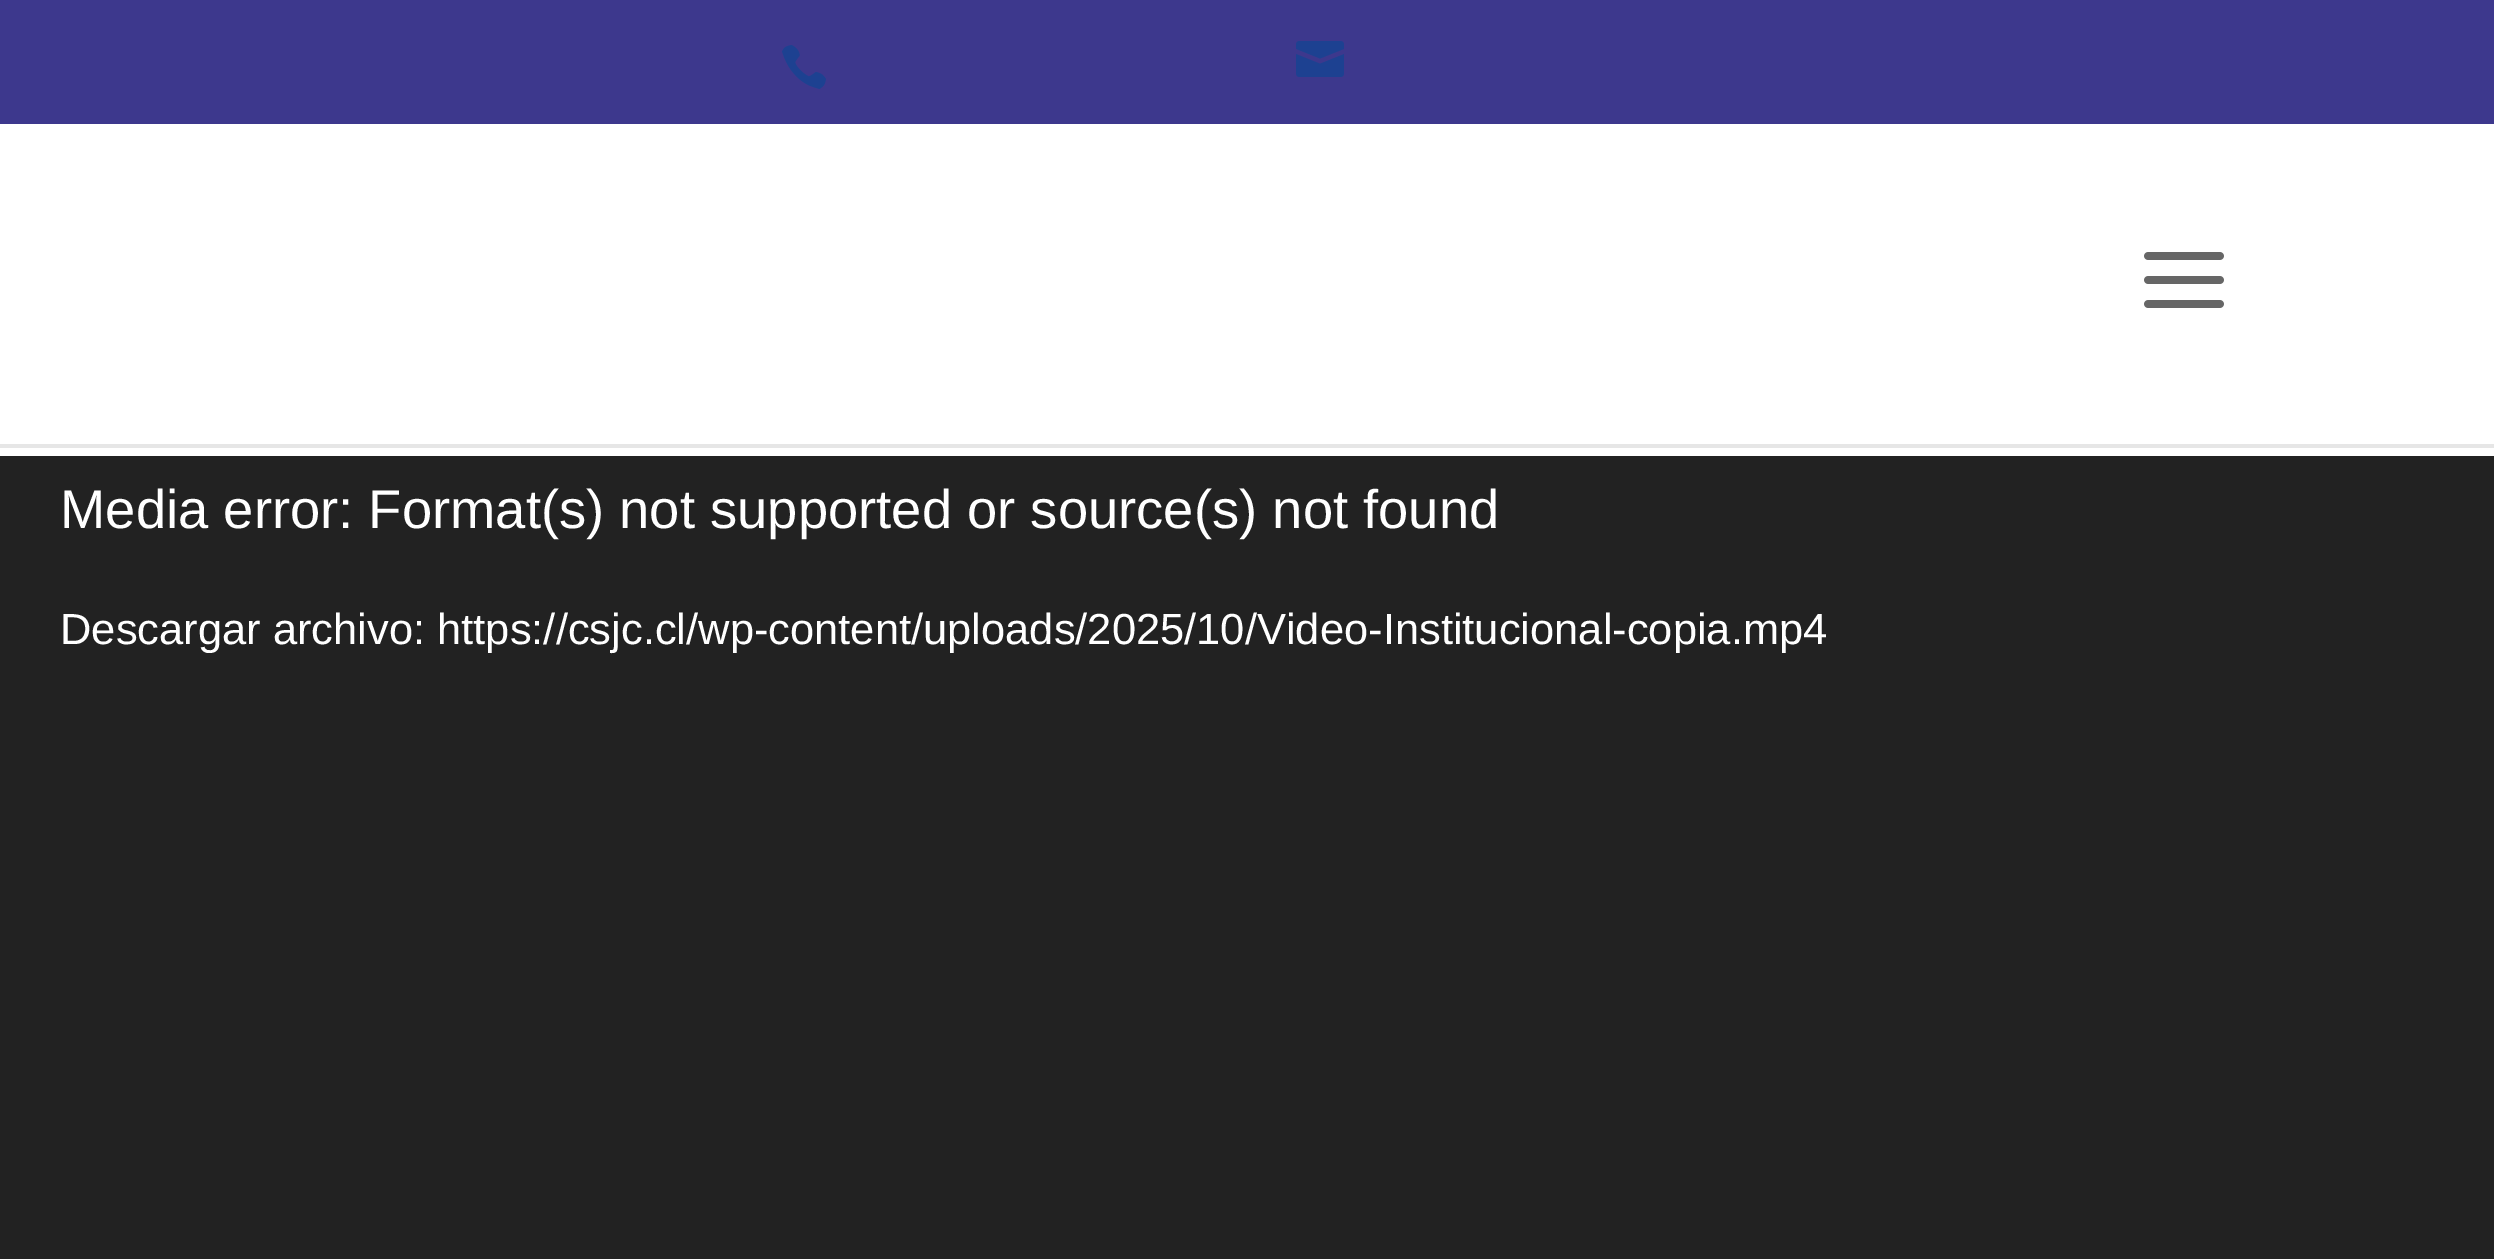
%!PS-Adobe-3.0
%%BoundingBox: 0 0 2494 1259
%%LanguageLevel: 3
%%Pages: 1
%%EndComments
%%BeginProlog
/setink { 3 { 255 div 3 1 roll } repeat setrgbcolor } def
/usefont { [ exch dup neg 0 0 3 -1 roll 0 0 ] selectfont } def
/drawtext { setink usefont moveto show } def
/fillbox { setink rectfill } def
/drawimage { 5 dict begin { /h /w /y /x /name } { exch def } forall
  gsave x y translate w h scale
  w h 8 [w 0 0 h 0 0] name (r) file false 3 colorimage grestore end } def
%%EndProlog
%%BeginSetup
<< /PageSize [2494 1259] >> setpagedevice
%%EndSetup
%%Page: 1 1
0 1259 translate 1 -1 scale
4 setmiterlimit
0 0 2494 1259 255 255 255 fillbox
0 0 2494 124 61 56 141 fillbox
(assets/img1.rgb) 782 45 44 44 drawimage
(assets/img2.rgb) 1296 41 48 36 drawimage
0 444 2494 4 230 230 230 fillbox
(assets/img3.rgb) 2144 252 80 56 drawimage
0 456 2494 803 34 34 34 fillbox
(Media error: Format\(s\) not supported or source\(s\) not found) 60 528 /LiberationSans-Regular 54.4 255 255 255 drawtext
(Descargar archivo: https://csjc.cl/wp-content/uploads/2025/10/Video-Institucional-copia.mp4) 60 644 /LiberationSans-Regular 43.5 255 255 255 drawtext
showpage
%%EOF
